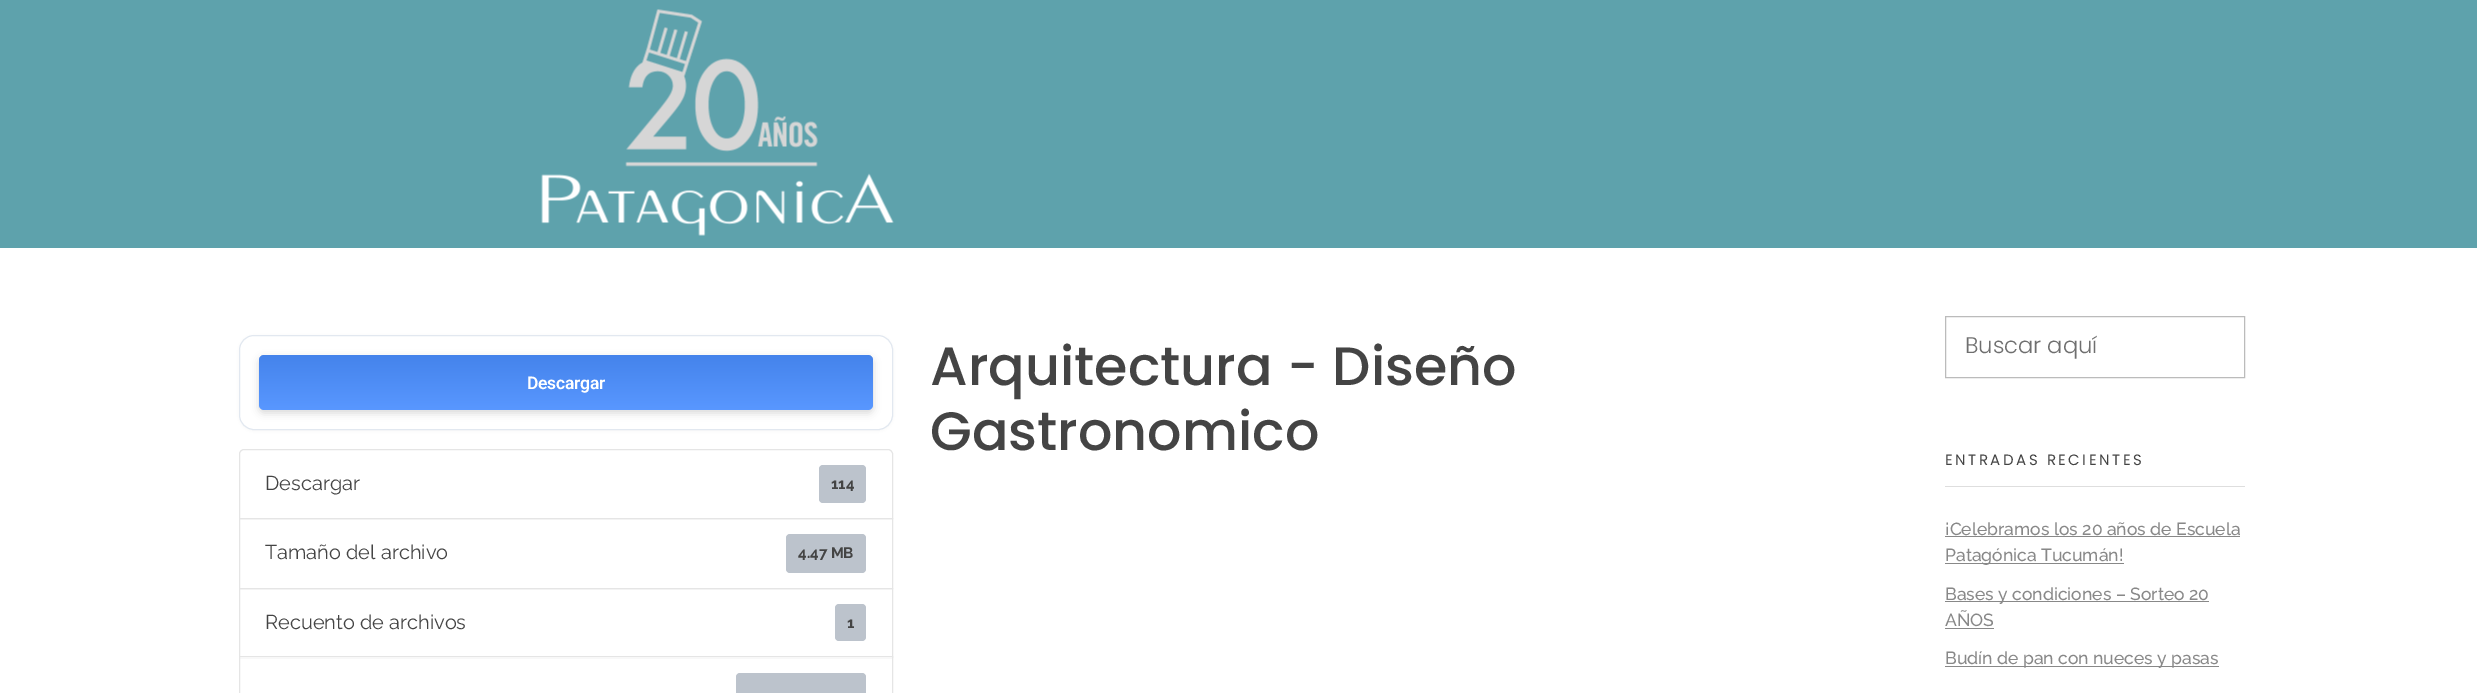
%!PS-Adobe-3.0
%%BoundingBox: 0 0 2477 693
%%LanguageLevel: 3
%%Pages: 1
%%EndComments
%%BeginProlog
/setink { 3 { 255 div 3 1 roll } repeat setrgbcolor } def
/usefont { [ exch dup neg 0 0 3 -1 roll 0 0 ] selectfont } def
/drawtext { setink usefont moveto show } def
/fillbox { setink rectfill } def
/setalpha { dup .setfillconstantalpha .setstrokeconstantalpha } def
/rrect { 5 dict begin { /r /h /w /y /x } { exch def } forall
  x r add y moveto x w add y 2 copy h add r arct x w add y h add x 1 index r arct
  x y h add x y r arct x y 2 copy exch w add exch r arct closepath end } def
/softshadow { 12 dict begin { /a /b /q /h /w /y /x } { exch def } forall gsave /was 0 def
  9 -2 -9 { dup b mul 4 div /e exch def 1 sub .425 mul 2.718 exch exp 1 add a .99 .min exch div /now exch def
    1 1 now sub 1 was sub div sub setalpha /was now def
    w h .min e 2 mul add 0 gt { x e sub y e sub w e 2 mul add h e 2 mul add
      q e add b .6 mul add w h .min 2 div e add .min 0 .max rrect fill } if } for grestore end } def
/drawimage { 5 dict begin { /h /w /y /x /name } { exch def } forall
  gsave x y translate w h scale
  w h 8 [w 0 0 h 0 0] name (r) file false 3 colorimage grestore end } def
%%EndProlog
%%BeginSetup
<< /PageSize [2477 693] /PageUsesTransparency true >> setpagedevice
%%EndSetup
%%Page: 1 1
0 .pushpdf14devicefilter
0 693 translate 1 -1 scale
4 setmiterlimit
0 0 2477 693 255 255 255 fillbox
0 0 2477 248 94 162 172 fillbox
(assets/img1.rgb) 541 9 353 227 drawimage
0 0 0 setink
239 336 654 95 15 2 0.04 softshadow
255 255 255 setink
239.5 335.5 653 94 14.5 rrect gsave fill grestore
226 232 240 setink
stroke
0 0 0 setink
259 358 614 55 5 4 0.15 softshadow
74 142 255 setink
259 355 614 55 5 rrect fill
0.08 setalpha
gsave 259 355 614 55 5 rrect clip newpath
<< /ShadingType 2 /ColorSpace /DeviceRGB /Coords [566 355 566 410] /Extend [true true] /Function << /FunctionType 2 /Domain [0 1] /C0 [0 0 0] /C1 [1 1 1] /N 1 >> >> shfill grestore
/Roboto-SemiBold 17.5 usefont
1 setalpha
255 255 255 setink
527 389 moveto -0.25 0 (Descargar) ashow
229 229 229 setink
244 449.5 moveto 888 449.5 lineto 890.5 449.5 892.5 451.5 892.5 454 curveto 892.5 518.5 lineto 239.5 518.5 lineto 239.5 454 lineto 239.5 451.5 241.5 449.5 244 449.5 curveto closepath stroke
(Descargar) 265 490 /Raleway-Regular 20 68 68 68 drawtext
188 195 204 setink
819 465 47 38 4 rrect fill
(114) 831 489 /Raleway-Bold 15 68 68 68 drawtext
229 229 229 setink
239.5 518.5 653 70 rectstroke
(Tamaño del archivo) 265 559 /Raleway-Regular 20 68 68 68 drawtext
188 195 204 setink
786 534 80 39 4 rrect fill
(4.47 MB) 798 558 /Raleway-Bold 15 68 68 68 drawtext
229 229 229 setink
239.5 588.5 653 69 rectstroke
(Recuento de archivos) 265 629 /Raleway-Regular 20 68 68 68 drawtext
188 195 204 setink
835 604 31 37 4 rrect fill
(1) 847 628 /Raleway-Bold 15 68 68 68 drawtext
240 657 652 1 255 255 255 fillbox
229 229 229 setink
239.5 656.5 653 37 rectstroke
188 195 204 setink
736 673 130 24 4 rrect fill
(Arquitectura - Diseño) 930 385 /Poppins-Medium 54 68 68 68 drawtext
(Gastronomico) 930 450 /Poppins-Medium 54 68 68 68 drawtext
187 187 187 setink
1945.5 316.5 299 61 rectstroke
(Buscar aquí) 1965 353 /Poppins-Light 22.5 111 111 111 drawtext
1945 486 300 1 222 222 222 fillbox
/Poppins-Regular 15 usefont
68 68 68 setink
1945 465 moveto 2.5 0 (ENTRADAS RECIENTES) ashow
(¡Celebramos los 20 años de Escuela) 1945 535 /Raleway-Medium 17.5 136 136 136 drawtext
1945 536 295 1 136 136 136 fillbox
1945 563 179 1 136 136 136 fillbox
(Patagónica Tucumán!) 1945 561 /Raleway-Medium 17.5 136 136 136 drawtext
1945 601 264 1 136 136 136 fillbox
(Bases y condiciones – Sorteo 20) 1945 600 /Raleway-Medium 17.5 136 136 136 drawtext
(AÑOS) 1945 626 /Raleway-Medium 17.5 136 136 136 drawtext
1945 628 49 1 136 136 136 fillbox
1945 666 274 1 136 136 136 fillbox
(Budín de pan con nueces y pasas) 1945 664 /Raleway-Medium 17.5 136 136 136 drawtext
.poppdf14devicefilter showpage
%%EOF
